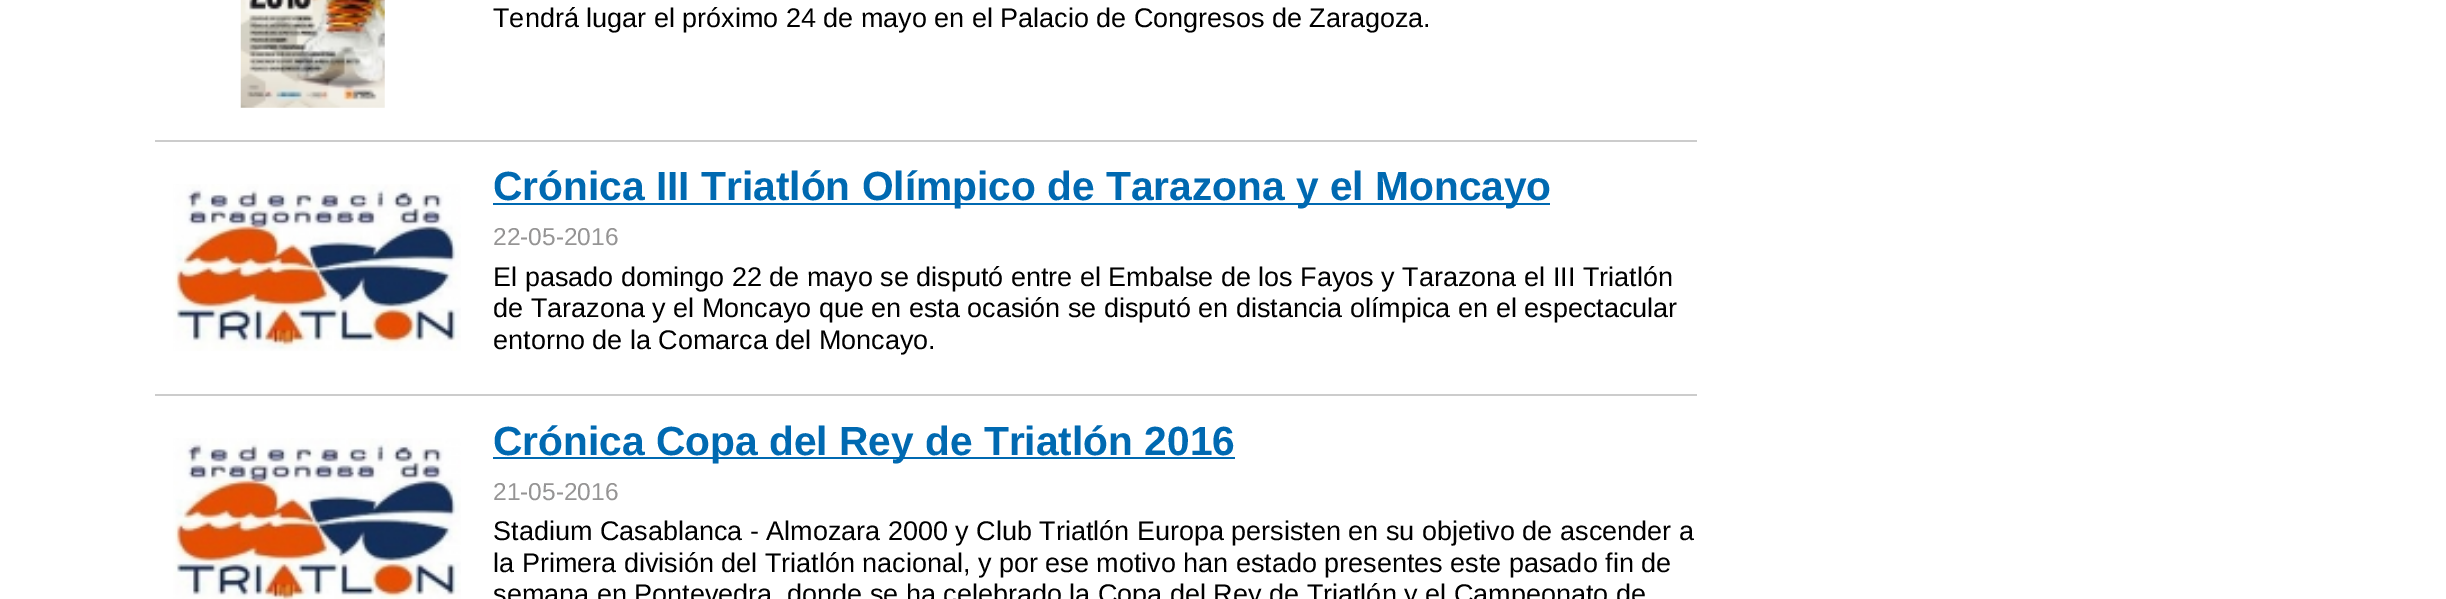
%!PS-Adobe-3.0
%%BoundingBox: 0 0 2446 599
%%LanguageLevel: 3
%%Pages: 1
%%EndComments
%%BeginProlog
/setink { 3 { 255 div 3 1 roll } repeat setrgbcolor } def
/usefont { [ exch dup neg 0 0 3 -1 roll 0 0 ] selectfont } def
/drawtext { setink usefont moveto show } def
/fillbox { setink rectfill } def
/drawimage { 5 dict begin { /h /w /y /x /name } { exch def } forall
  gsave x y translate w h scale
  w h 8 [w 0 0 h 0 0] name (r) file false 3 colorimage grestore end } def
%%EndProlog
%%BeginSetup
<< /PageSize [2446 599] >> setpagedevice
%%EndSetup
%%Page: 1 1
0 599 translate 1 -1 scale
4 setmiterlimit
0 0 2446 599 255 255 255 fillbox
155 140 1542 2 204 204 204 fillbox
(assets/img1.rgb) 240 0 145 108 drawimage
(Tendrá lugar el próximo 24 de mayo en el Palacio de Congresos de Zaragoza.) 493 27 /LiberationSans-Regular 27 0 0 0 drawtext
155 394 1542 2 204 204 204 fillbox
(assets/img2.rgb) 173 184 288 167 drawimage
493 203 1057 2 0 105 177 fillbox
(Crónica III Triatlón Olímpico de Tarazona y el Moncayo) 493 200 /LiberationSans-Bold 40.7 0 105 177 drawtext
(22-05-2016) 493 245 /LiberationSans-Regular 24.5 149 148 148 drawtext
(El pasado domingo 22 de mayo se disputó entre el Embalse de los Fayos y Tarazona el III Triatlón) 493 286 /LiberationSans-Regular 27 0 0 0 drawtext
(de Tarazona y el Moncayo que en esta ocasión se disputó en distancia olímpica en el espectacular) 493 317 /LiberationSans-Regular 27 0 0 0 drawtext
(entorno de la Comarca del Moncayo.) 493 349 /LiberationSans-Regular 27 0 0 0 drawtext
(assets/img3.rgb) 173 438 288 161 drawimage
493 457 742 2 0 105 177 fillbox
(Crónica Copa del Rey de Triatlón 2016) 493 455 /LiberationSans-Bold 40.7 0 105 177 drawtext
(21-05-2016) 493 500 /LiberationSans-Regular 24.5 149 148 148 drawtext
(Stadium Casablanca - Almozara 2000 y Club Triatlón Europa persisten en su objetivo de ascender a) 493 540 /LiberationSans-Regular 27 0 0 0 drawtext
(la Primera división del Triatlón nacional, y por ese motivo han estado presentes este pasado fin de) 493 572 /LiberationSans-Regular 27 0 0 0 drawtext
(semana en Pontevedra, donde se ha celebrado la Copa del Rey de Triatlón y el Campeonato de) 493 603 /LiberationSans-Regular 27 0 0 0 drawtext
showpage
%%EOF
